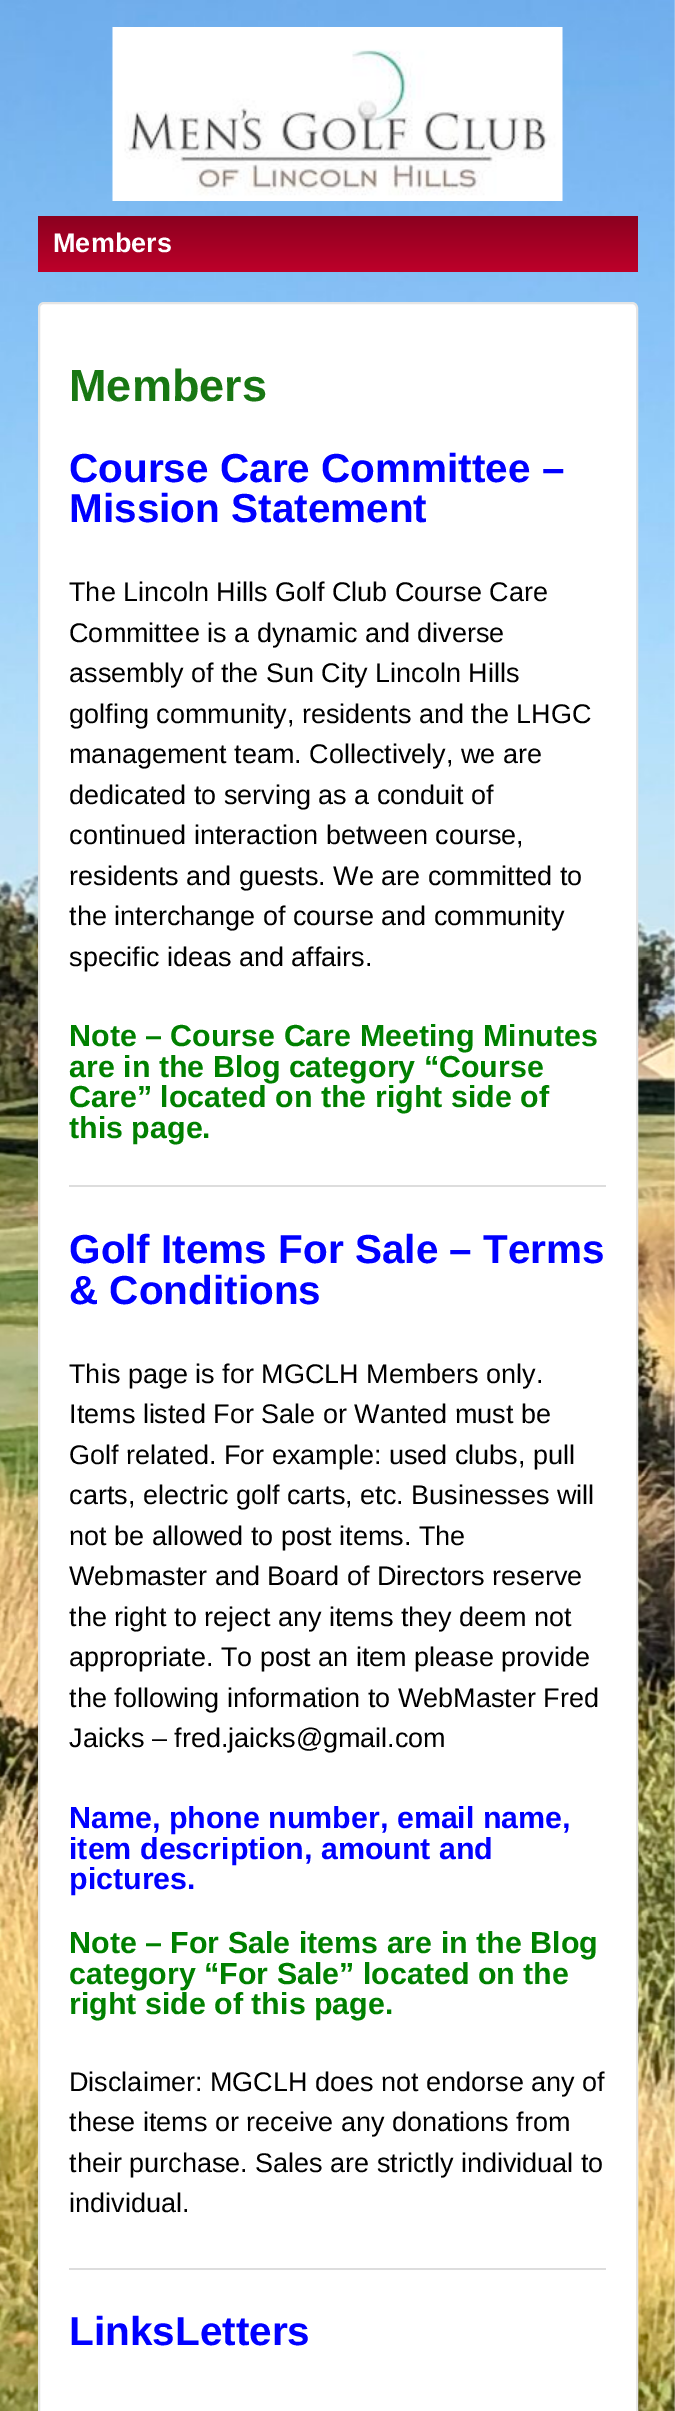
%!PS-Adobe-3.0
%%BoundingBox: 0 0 675 2411
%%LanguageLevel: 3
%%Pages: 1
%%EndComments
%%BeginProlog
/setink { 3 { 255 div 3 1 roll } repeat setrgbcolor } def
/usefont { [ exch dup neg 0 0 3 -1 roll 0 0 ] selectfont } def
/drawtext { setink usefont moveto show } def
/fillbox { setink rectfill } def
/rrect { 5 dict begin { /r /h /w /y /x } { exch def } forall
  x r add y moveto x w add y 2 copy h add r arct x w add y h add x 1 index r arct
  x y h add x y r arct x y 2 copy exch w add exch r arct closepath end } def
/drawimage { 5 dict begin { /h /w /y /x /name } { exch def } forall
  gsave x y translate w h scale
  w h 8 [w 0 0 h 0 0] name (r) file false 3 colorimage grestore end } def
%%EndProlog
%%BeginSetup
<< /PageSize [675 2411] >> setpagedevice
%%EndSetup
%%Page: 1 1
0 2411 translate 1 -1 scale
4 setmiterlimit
0 0 675 2411 255 255 255 fillbox
(assets/img1.rgb) 0 0 675 2411 drawimage
(assets/img2.rgb) 112 27 451 174 drawimage
gsave 38 216 moveto 638 216 lineto 638 272 lineto 38 272 lineto closepath clip newpath
<< /ShadingType 2 /ColorSpace /DeviceRGB /Coords [338 272 338 216] /Extend [true true] /Function << /FunctionType 2 /Domain [0 1] /C0 [0.745 0 0.165] /C1 [0.545 0 0.122] /N 1 >> >> shfill grestore
(Members) 53 252 /LiberationSans-Bold 27 255 255 255 drawtext
39 303 598 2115 5 rrect gsave fill grestore
229 229 229 setink
2 setlinewidth
stroke
(Members) 69 401 /LiberationSans-Bold 45 24 119 19 drawtext
(Course Care Committee –) 69 482 /LiberationSans-Bold 40.5 0 0 255 drawtext
(Mission Statement) 69 522 /LiberationSans-Bold 40.5 0 0 255 drawtext
(The Lincoln Hills Golf Club Course Care) 69 601 /LiberationSans-Regular 27 0 0 0 drawtext
(Committee is a dynamic and diverse) 69 642 /LiberationSans-Regular 27 0 0 0 drawtext
(assembly of the Sun City Lincoln Hills) 69 682 /LiberationSans-Regular 27 0 0 0 drawtext
(golfing community, residents and the LHGC) 69 723 /LiberationSans-Regular 27 0 0 0 drawtext
(management team. Collectively, we are) 69 763 /LiberationSans-Regular 27 0 0 0 drawtext
(dedicated to serving as a conduit of) 69 804 /LiberationSans-Regular 27 0 0 0 drawtext
(continued interaction between course,) 69 844 /LiberationSans-Regular 27 0 0 0 drawtext
(residents and guests. We are committed to) 69 885 /LiberationSans-Regular 27 0 0 0 drawtext
(the interchange of course and community) 69 925 /LiberationSans-Regular 27 0 0 0 drawtext
(specific ideas and affairs.) 69 966 /LiberationSans-Regular 27 0 0 0 drawtext
(Note – Course Care Meeting Minutes) 69 1046 /LiberationSans-Bold 30.4 0 128 0 drawtext
(are in the Blog category “Course) 69 1077 /LiberationSans-Bold 30.4 0 128 0 drawtext
(Care” located on the right side of) 69 1107 /LiberationSans-Bold 30.4 0 128 0 drawtext
(this page.) 69 1138 /LiberationSans-Bold 30.4 0 128 0 drawtext
69 1185 537 2 221 221 221 fillbox
(Golf Items For Sale – Terms) 69 1263 /LiberationSans-Bold 40.5 0 0 255 drawtext
(& Conditions) 69 1304 /LiberationSans-Bold 40.5 0 0 255 drawtext
(This page is for MGCLH Members only.) 69 1383 /LiberationSans-Regular 27 0 0 0 drawtext
(Items listed For Sale or Wanted must be) 69 1423 /LiberationSans-Regular 27 0 0 0 drawtext
(Golf related. For example: used clubs, pull) 69 1464 /LiberationSans-Regular 27 0 0 0 drawtext
(carts, electric golf carts, etc. Businesses will) 69 1504 /LiberationSans-Regular 27 0 0 0 drawtext
(not be allowed to post items. The) 69 1545 /LiberationSans-Regular 27 0 0 0 drawtext
(Webmaster and Board of Directors reserve) 69 1585 /LiberationSans-Regular 27 0 0 0 drawtext
(the right to reject any items they deem not) 69 1626 /LiberationSans-Regular 27 0 0 0 drawtext
(appropriate. To post an item please provide) 69 1666 /LiberationSans-Regular 27 0 0 0 drawtext
(the following information to WebMaster Fred) 69 1707 /LiberationSans-Regular 27 0 0 0 drawtext
(Jaicks – fred.jaicks@gmail.com) 69 1747 /LiberationSans-Regular 27 0 0 0 drawtext
(Name, phone number, email name,) 69 1828 /LiberationSans-Bold 30.4 0 0 255 drawtext
(item description, amount and) 69 1859 /LiberationSans-Bold 30.4 0 0 255 drawtext
(pictures.) 69 1889 /LiberationSans-Bold 30.4 0 0 255 drawtext
(Note – For Sale items are in the Blog) 69 1953 /LiberationSans-Bold 30.4 0 128 0 drawtext
(category “For Sale” located on the) 69 1984 /LiberationSans-Bold 30.4 0 128 0 drawtext
(right side of this page.) 69 2014 /LiberationSans-Bold 30.4 0 128 0 drawtext
(Disclaimer: MGCLH does not endorse any of) 69 2091 /LiberationSans-Regular 27 0 0 0 drawtext
(these items or receive any donations from) 69 2131 /LiberationSans-Regular 27 0 0 0 drawtext
(their purchase. Sales are strictly individual to) 69 2172 /LiberationSans-Regular 27 0 0 0 drawtext
(individual.) 69 2212 /LiberationSans-Regular 27 0 0 0 drawtext
69 2268 537 2 221 221 221 fillbox
(LinksLetters) 69 2345 /LiberationSans-Bold 40.5 0 0 255 drawtext
showpage
%%EOF
